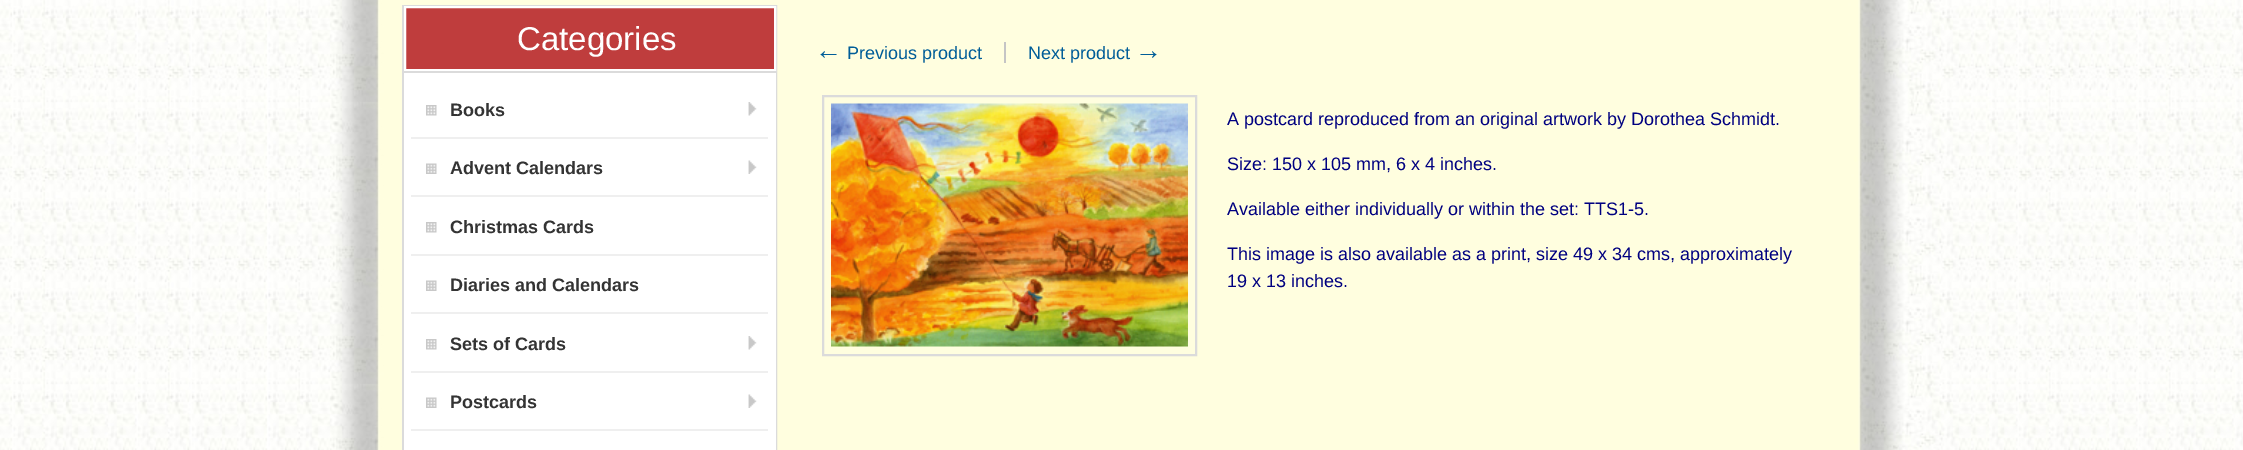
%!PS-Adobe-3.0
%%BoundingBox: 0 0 2243 450
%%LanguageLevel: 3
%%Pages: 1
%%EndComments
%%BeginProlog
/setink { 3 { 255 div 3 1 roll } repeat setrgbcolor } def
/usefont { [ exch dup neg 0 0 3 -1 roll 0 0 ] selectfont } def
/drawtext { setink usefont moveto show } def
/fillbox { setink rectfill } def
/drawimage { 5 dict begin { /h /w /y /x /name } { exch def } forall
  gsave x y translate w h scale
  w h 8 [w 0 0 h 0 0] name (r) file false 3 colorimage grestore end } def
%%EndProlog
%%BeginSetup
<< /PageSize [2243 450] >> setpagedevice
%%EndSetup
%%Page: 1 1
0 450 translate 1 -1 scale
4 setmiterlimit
0 0 2243 450 255 255 255 fillbox
(assets/img1.rgb) 0 0 2243 450 drawimage
219 219 219 setink
2 setlinewidth
403 6 373 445 rectstroke
191 61 61 setink
405 7 moveto 775 7 lineto 775 70 lineto 405 70 lineto closepath gsave fill grestore
255 255 255 setink
stroke
(Categories) 517 50 /LiberationSans-Regular 33 255 255 255 drawtext
404 73 372 377 255 255 255 fillbox
404 71 372 2 219 219 219 fillbox
411 137 357 2 239 239 239 fillbox
(assets/img2.rgb) 748 102 9 14 drawimage
(assets/img3.rgb) 426 105 11 11 drawimage
(Books) 450 116 /LiberationSans-Bold 18 52 52 52 drawtext
411 195 357 2 239 239 239 fillbox
(assets/img4.rgb) 748 160 9 14 drawimage
(assets/img5.rgb) 426 163 11 11 drawimage
(Advent Calendars) 450 174 /LiberationSans-Bold 18 52 52 52 drawtext
411 254 357 2 239 239 239 fillbox
(assets/img3.rgb) 426 222 11 11 drawimage
(Christmas Cards) 450 233 /LiberationSans-Bold 18 52 52 52 drawtext
411 312 357 2 239 239 239 fillbox
(assets/img5.rgb) 426 280 11 11 drawimage
(Diaries and Calendars) 450 291 /LiberationSans-Bold 18 52 52 52 drawtext
411 371 357 2 239 239 239 fillbox
(assets/img2.rgb) 748 336 9 14 drawimage
(assets/img3.rgb) 426 339 11 11 drawimage
(Sets of Cards) 450 350 /LiberationSans-Bold 18 52 52 52 drawtext
411 429 357 2 239 239 239 fillbox
(assets/img4.rgb) 748 394 9 14 drawimage
(assets/img5.rgb) 426 397 11 11 drawimage
(Postcards) 450 408 /LiberationSans-Bold 18 52 52 52 drawtext
(←) 815 59 /LiberationSans-Regular 27 0 93 152 drawtext
(Previous product) 847 59 /LiberationSans-Regular 18 0 93 152 drawtext
1004 42 2 21 197 197 197 fillbox
(Next product) 1028 59 /LiberationSans-Regular 18 0 93 152 drawtext
(→) 1135 59 /LiberationSans-Regular 27 0 93 152 drawtext
219 219 219 setink
823 96 373 259 rectstroke
(assets/img6.rgb) 831 103 357 244 drawimage
(A postcard reproduced from an original artwork by Dorothea Schmidt.) 1227 125 /LiberationSans-Regular 18 0 0 128 drawtext
(Size: 150 x 105 mm, 6 x 4 inches.) 1227 170 /LiberationSans-Regular 18 0 0 128 drawtext
(Available either individually or within the set: TTS1-5.) 1227 215 /LiberationSans-Regular 18 0 0 128 drawtext
(This image is also available as a print, size 49 x 34 cms, approximately) 1227 260 /LiberationSans-Regular 18 0 0 128 drawtext
(19 x 13 inches.) 1227 287 /LiberationSans-Regular 18 0 0 128 drawtext
showpage
%%EOF
